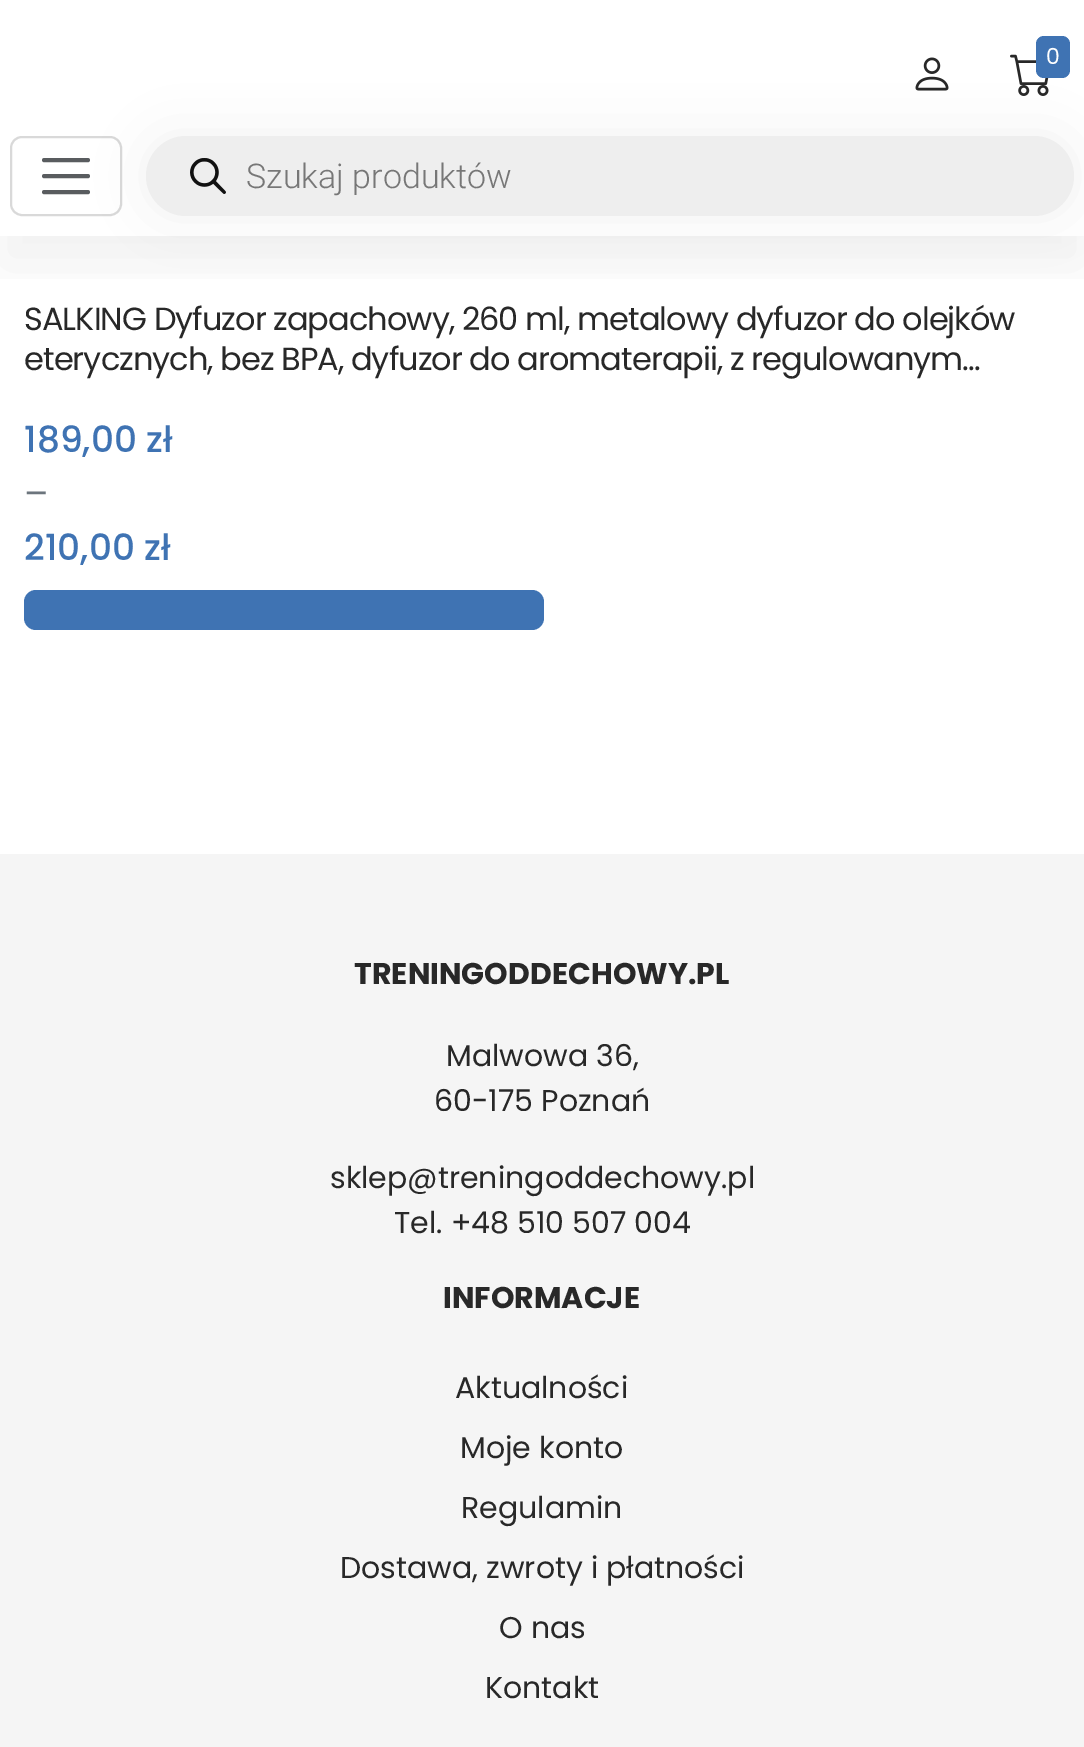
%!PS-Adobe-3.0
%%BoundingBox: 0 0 1084 1747
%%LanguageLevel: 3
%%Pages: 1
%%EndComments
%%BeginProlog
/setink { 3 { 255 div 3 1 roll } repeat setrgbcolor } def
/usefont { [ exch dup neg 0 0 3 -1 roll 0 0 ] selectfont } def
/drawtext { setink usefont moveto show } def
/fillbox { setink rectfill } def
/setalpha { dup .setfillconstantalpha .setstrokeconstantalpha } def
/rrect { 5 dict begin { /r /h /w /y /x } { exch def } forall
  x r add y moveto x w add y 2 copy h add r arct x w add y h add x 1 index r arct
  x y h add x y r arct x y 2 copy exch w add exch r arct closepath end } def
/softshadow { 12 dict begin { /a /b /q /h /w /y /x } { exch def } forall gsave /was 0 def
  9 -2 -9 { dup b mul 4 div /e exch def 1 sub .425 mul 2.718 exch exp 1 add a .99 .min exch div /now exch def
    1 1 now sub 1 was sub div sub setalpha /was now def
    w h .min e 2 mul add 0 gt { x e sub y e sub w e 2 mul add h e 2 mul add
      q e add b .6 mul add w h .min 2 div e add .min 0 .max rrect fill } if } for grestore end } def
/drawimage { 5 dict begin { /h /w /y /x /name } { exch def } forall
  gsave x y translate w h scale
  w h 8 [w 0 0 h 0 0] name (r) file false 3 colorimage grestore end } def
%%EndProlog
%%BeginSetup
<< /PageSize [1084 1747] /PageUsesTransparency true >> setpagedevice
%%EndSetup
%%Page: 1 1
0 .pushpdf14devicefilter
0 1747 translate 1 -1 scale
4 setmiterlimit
0 0 1084 1747 255 255 255 fillbox
gsave
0 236 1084 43 rectclip
0 0 0 setink
0 30 1084 236 0 30 0.06 softshadow
grestore
(assets/img1.rgb) 915 57 34 34 drawimage
(assets/img2.rgb) 1010 54 39 42 drawimage
63 115 179 setink
1036 36 34 42 8 rrect fill
(0) 1046 64 /Poppins-Regular 22 255 255 255 drawtext
217 217 217 setink
2 setlinewidth
11 137 110 78 11 rrect stroke
89 92 95 setink
4 setlinewidth
1 setlinecap
44 160 moveto 88 160 lineto 44 176 moveto 88 176 lineto 44 192 moveto 88 192 lineto stroke
0 0 0 setink
146 136 928 80 40 30 0.06 softshadow
238 238 238 setink
146 136 928 80 40 rrect fill
(assets/img3.rgb) 190 158 36 36 drawimage
(Szukaj produktów) 246 188 /Roboto-Light 34 119 119 119 drawtext
/Poppins-Regular 32 usefont
40 40 40 setink
24 330 moveto -0.95 0 (SALKING Dyfuzor zapachowy, 260 ml, metalowy dyfuzor do olejków) ashow
24 370 moveto -0.95 0 (eterycznych, bez BPA, dyfuzor do aromaterapii, z regulowanym…) ashow
(189,00 zł) 24 452 /Poppins-Medium 36 63 115 179 drawtext
(–) 24 506 /Poppins-Regular 36 108 117 125 drawtext
(210,00 zł) 24 560 /Poppins-Medium 36 63 115 179 drawtext
24 590 520 40 12 rrect fill
0 854 1084 893 245 245 245 fillbox
(TRENINGODDECHOWY.PL) 354 984 /Poppins-Bold 30 40 40 40 drawtext
(Malwowa 36,) 446 1066 /Poppins-Regular 30 40 40 40 drawtext
(60-175 Poznań) 434 1111 /Poppins-Regular 30 40 40 40 drawtext
(sklep@treningoddechowy.pl) 330 1188 /Poppins-Regular 30 40 40 40 drawtext
(Tel. +48 510 507 004) 394 1233 /Poppins-Regular 30 40 40 40 drawtext
(INFORMACJE) 443 1308 /Poppins-Bold 30 40 40 40 drawtext
(Aktualności) 455 1398 /Poppins-Regular 30 40 40 40 drawtext
(Moje konto) 460 1458 /Poppins-Regular 30 40 40 40 drawtext
(Regulamin) 461 1518 /Poppins-Regular 30 40 40 40 drawtext
(Dostawa, zwroty i płatności) 340 1578 /Poppins-Regular 30 40 40 40 drawtext
(O nas) 499 1638 /Poppins-Regular 30 40 40 40 drawtext
(Kontakt) 485 1698 /Poppins-Regular 30 40 40 40 drawtext
.poppdf14devicefilter showpage
%%EOF
